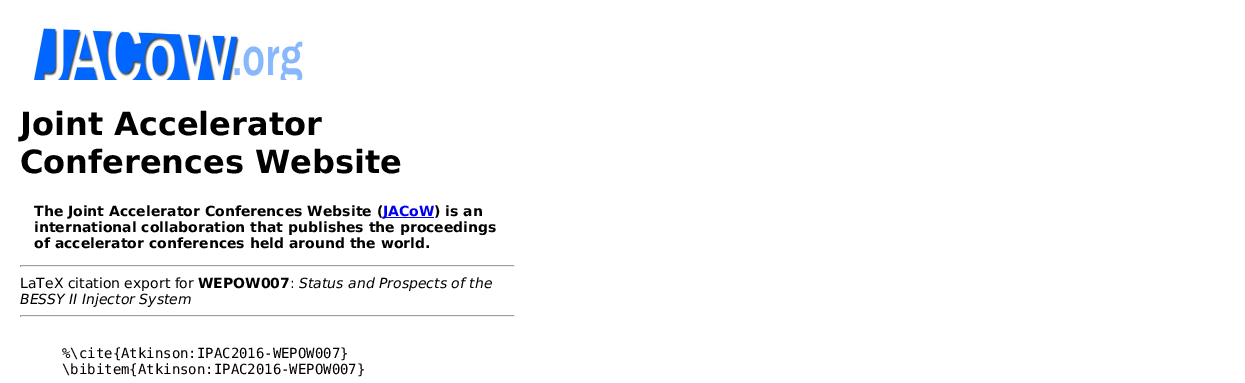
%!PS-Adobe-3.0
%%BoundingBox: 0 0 1245 383
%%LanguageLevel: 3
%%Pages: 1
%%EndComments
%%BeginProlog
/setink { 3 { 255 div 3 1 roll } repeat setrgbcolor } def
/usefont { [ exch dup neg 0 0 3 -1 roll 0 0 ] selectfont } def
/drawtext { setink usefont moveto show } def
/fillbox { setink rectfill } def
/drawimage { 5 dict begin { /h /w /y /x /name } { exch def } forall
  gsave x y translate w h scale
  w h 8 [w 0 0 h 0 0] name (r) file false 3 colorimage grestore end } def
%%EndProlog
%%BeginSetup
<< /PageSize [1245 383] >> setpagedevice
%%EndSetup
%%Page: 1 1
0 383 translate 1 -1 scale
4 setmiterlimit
0 0 1245 383 255 255 255 fillbox
(assets/img1.rgb) 32 25 272 55 drawimage
(Joint Accelerator) 20 135 /DejaVuSans-Bold 32 0 0 0 drawtext
(Conferences Website) 20 173 /DejaVuSans-Bold 32 0 0 0 drawtext
(The Joint Accelerator Conferences Website \() 34 216 /DejaVuSans-Bold 14 0 0 0 drawtext
383 217 51 1 0 0 238 fillbox
(JACoW) 383 216 /DejaVuSans-Bold 14 0 0 238 drawtext
(\) is an) 434 216 /DejaVuSans-Bold 14 0 0 0 drawtext
(international collaboration that publishes the proceedings) 34 232 /DejaVuSans-Bold 14 0 0 0 drawtext
(of accelerator conferences held around the world.) 34 248 /DejaVuSans-Bold 14 0 0 0 drawtext
20 265 495 1 159 159 159 fillbox
514 265 1 2 238 238 238 fillbox
20 266 495 1 238 238 238 fillbox
20 265 1 2 159 159 159 fillbox
(LaTeX citation export for) 20 288 /DejaVuSans-Regular 14 0 0 0 drawtext
(WEPOW007) 198 288 /DejaVuSans-Bold 14 0 0 0 drawtext
(:) 290 288 /DejaVuSans-Regular 14 0 0 0 drawtext
(Status and Prospects of the) 299 288 /DejaVuSans-Italic 14 0 0 0 drawtext
(BESSY II Injector System) 20 304 /DejaVuSans-Italic 14 0 0 0 drawtext
20 315 495 1 159 159 159 fillbox
514 315 1 2 238 238 238 fillbox
20 316 495 1 238 238 238 fillbox
20 315 1 2 159 159 159 fillbox
(%\\cite{Atkinson:IPAC2016-WEPOW007}) 62 358 /DejaVuSansMono-Regular 14 0 0 0 drawtext
(\\bibitem{Atkinson:IPAC2016-WEPOW007}) 62 374 /DejaVuSansMono-Regular 14 0 0 0 drawtext
showpage
%%EOF
